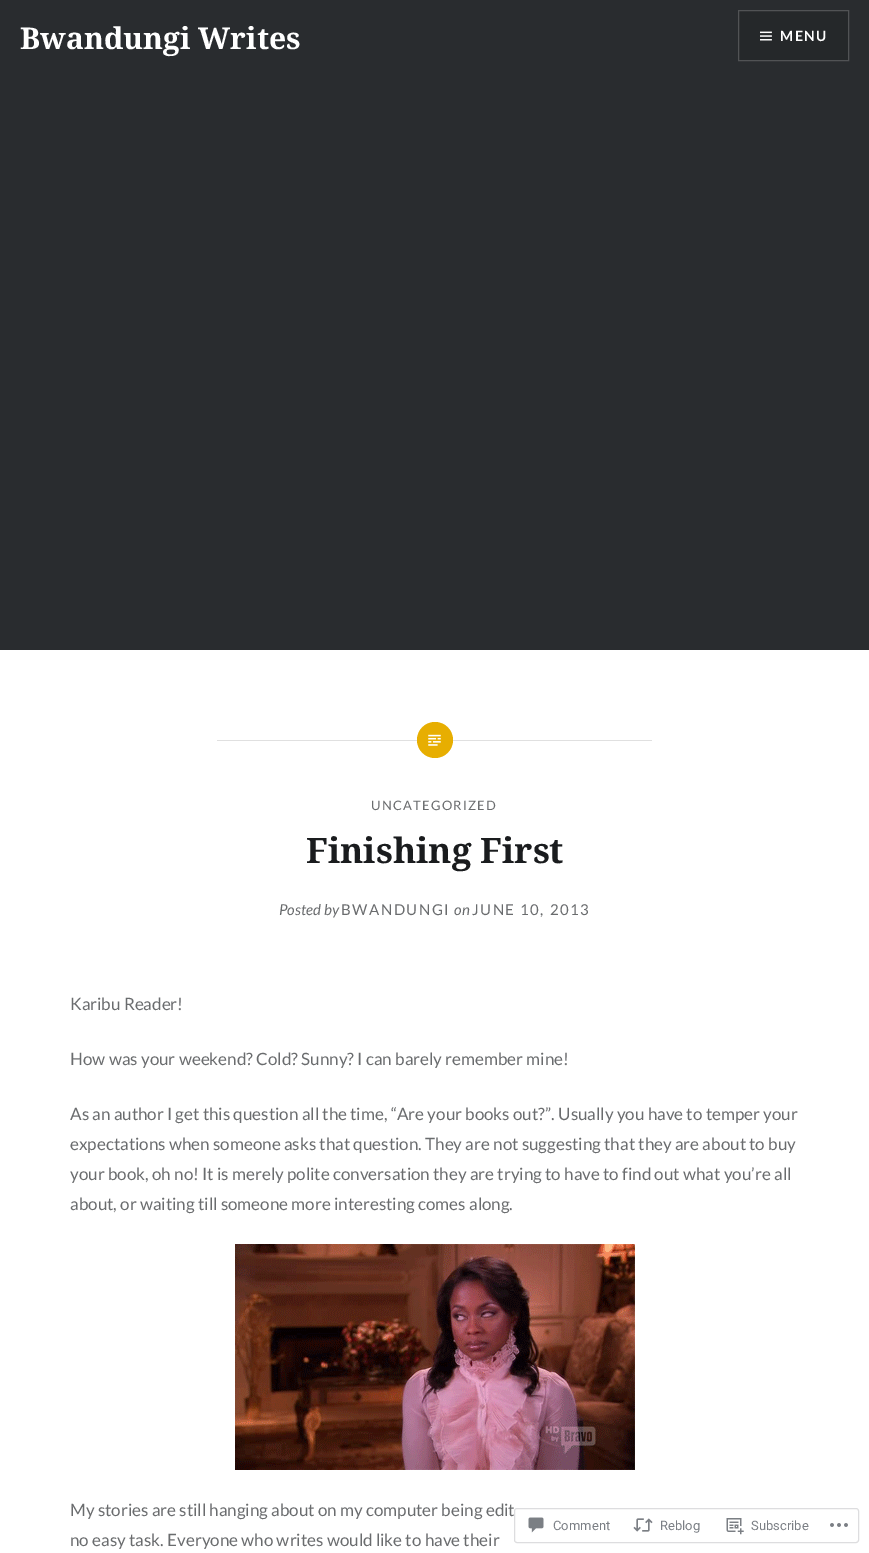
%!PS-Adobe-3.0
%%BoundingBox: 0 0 869 1553
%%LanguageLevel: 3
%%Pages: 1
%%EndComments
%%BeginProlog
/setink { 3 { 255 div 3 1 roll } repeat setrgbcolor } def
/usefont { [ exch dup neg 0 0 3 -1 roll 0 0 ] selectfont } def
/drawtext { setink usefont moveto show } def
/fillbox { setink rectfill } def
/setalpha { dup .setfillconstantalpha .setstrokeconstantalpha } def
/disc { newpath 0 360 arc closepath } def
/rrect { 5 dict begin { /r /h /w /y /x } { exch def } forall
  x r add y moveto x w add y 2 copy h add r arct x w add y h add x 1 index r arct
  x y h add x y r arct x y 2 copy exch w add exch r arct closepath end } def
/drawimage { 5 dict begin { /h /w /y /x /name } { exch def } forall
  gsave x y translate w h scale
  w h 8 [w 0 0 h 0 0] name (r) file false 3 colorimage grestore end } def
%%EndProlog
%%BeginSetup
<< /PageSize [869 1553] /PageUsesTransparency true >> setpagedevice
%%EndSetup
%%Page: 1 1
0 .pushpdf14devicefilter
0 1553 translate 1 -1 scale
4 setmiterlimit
0 0 869 1553 255 255 255 fillbox
0 0 869 650 41 44 47 fillbox
(Bwandungi Writes) 20 49 /NotoSerif-Bold 30 255 255 255 drawtext
37 40 42 setink
738.5 10.5 moveto 848.5 10.5 lineto 848.5 60.5 lineto 738.5 60.5 lineto closepath gsave fill grestore
81 83 85 setink
stroke
(assets/img1.rgb) 760 31 12 10 drawimage
/Lato-Bold 14 usefont
255 255 255 setink
780 41 moveto 1.5 0 (MENU) ashow
217 740 435 1 224 224 224 fillbox
231 174 1 setink
435 740 18 disc fill
(assets/img2.rgb) 428 734 13 12 drawimage
/Lato-Regular 13 usefont
106 108 110 setink
371 810 moveto 1.25 0 (UNCATEGORIZED) ashow
(Finishing First) 306 863 /NotoSerif-Bold 35 26 28 30 drawtext
(Posted by) 279 915 /Lato-Italic 15 106 108 110 drawtext
/Lato-Regular 15 usefont
341 915 moveto 1.5 0 (BWANDUNGI) ashow
(on) 454 915 /Lato-Italic 15 106 108 110 drawtext
/Lato-Regular 15 usefont
472 915 moveto 1.5 0 (JUNE 10, 2013) ashow
(Karibu Reader!) 70 1010 /Lato-Regular 17 106 108 110 drawtext
(How was your weekend? Cold? Sunny? I can barely remember mine!) 70 1065 /Lato-Regular 17 106 108 110 drawtext
(As an author I get this question all the time, “Are your books out?”. Usually you have to temper your) 70 1120 /Lato-Regular 17 106 108 110 drawtext
(expectations when someone asks that question. They are not suggesting that they are about to buy) 70 1150 /Lato-Regular 17 106 108 110 drawtext
(your book, oh no! It is merely polite conversation they are trying to have to find out what you’re all) 70 1180 /Lato-Regular 17 106 108 110 drawtext
(about, or waiting till someone more interesting comes along.) 70 1210 /Lato-Regular 17 106 108 110 drawtext
(assets/img3.rgb) 235 1244 400 226 drawimage
(My stories are still hanging about on my computer being edit) 70 1516 /Lato-Regular 17 106 108 110 drawtext
(no easy task. Everyone who writes would like to have their) 70 1546 /Lato-Regular 17 106 108 110 drawtext
0.98 setalpha
220 220 222 setink
514.5 1508.5 344 34 2.5 rrect stroke
1 setalpha
(assets/img4.rgb) 528 1517 16 16 drawimage
(Comment) 553 1530 /Roboto-Regular 13 123 127 133 drawtext
(assets/img5.rgb) 633 1518 20 14 drawimage
(Reblog) 660 1530 /Roboto-Regular 13 123 127 133 drawtext
(assets/img6.rgb) 726 1518 18 17 drawimage
(Subscribe) 751 1530 /Roboto-Regular 13 123 127 133 drawtext
(assets/img7.rgb) 830 1523 18 4 drawimage
.poppdf14devicefilter showpage
%%EOF
